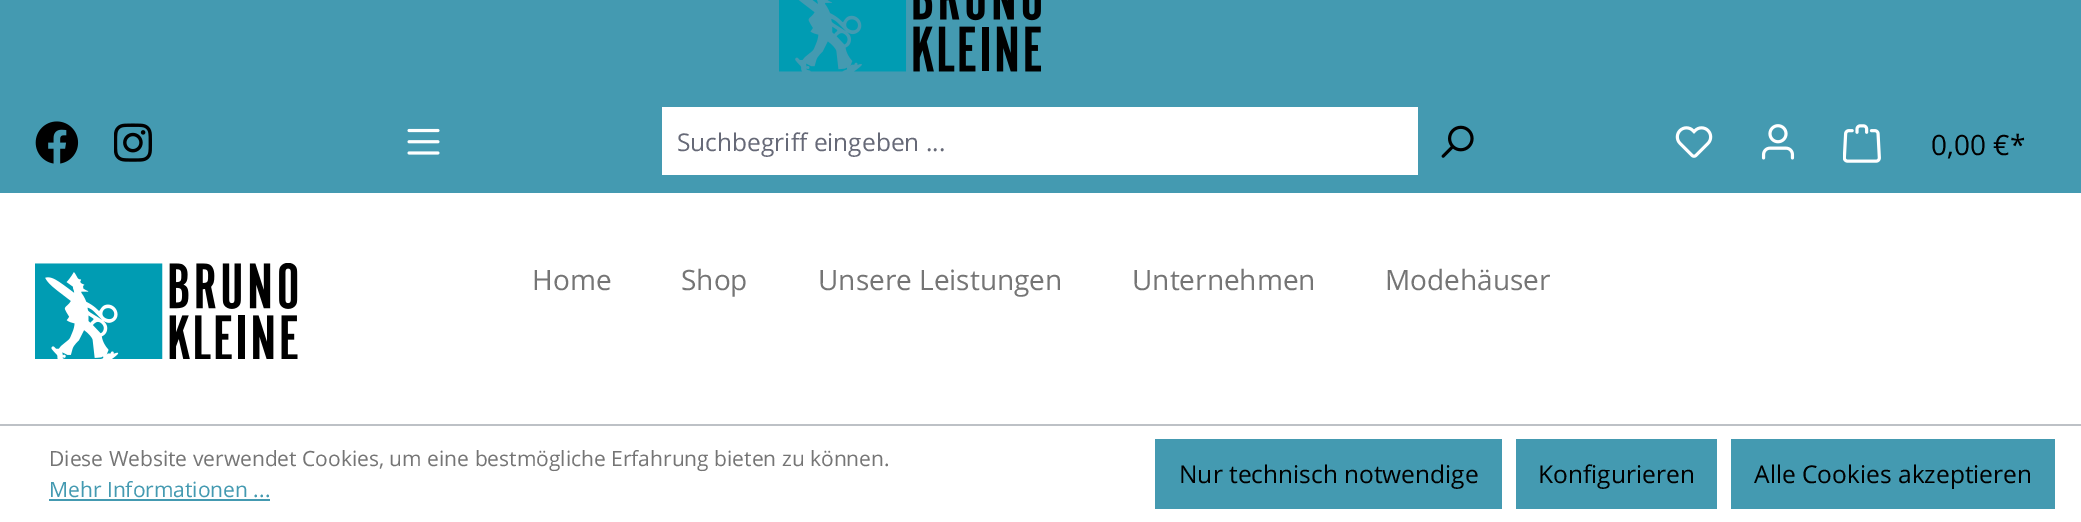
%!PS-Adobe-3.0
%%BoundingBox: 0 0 2081 522
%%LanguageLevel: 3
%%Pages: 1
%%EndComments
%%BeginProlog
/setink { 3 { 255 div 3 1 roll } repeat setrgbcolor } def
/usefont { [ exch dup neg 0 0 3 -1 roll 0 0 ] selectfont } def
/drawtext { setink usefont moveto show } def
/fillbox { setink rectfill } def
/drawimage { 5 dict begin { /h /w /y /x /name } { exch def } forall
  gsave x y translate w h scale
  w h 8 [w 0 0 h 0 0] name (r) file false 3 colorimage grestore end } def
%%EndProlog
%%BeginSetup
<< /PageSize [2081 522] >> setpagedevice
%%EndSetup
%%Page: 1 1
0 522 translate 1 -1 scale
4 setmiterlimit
0 0 2081 522 255 255 255 fillbox
0 0 2081 193 68 154 177 fillbox
(assets/img1.rgb) 779 0 262 72 drawimage
(assets/img2.rgb) 35 121 44 43 drawimage
(assets/img3.rgb) 114 123 38 39 drawimage
(assets/img4.rgb) 407 128 33 27 drawimage
662 107 756 68 255 255 255 fillbox
(Suchbegriff eingeben ...) 677 151 /OpenSans-Regular 24.5 102 105 119 drawtext
(assets/img5.rgb) 1441 125 33 33 drawimage
(assets/img6.rgb) 1675 126 38 32 drawimage
(assets/img7.rgb) 1761 124 34 36 drawimage
(assets/img8.rgb) 1843 124 38 39 drawimage
(0,00 €*) 1931 155 /OpenSans-Regular 28 0 0 0 drawtext
(assets/img9.rgb) 35 263 263 96 drawimage
(Home) 532 290 /OpenSans-Regular 28 117 117 117 drawtext
(Shop) 681 290 /OpenSans-Regular 28 117 117 117 drawtext
(Unsere Leistungen) 818 290 /OpenSans-Regular 28 117 117 117 drawtext
(Unternehmen) 1132 290 /OpenSans-Regular 28 117 117 117 drawtext
(Modehäuser) 1385 290 /OpenSans-Regular 28 117 117 117 drawtext
0 424 2081 2 189 193 198 fillbox
(Diese Website verwendet Cookies, um eine bestmögliche Erfahrung bieten zu können.) 49 466 /OpenSans-Regular 21 117 117 117 drawtext
(Mehr Informationen ...) 49 497 /OpenSans-Regular 21 68 154 177 drawtext
49 499 221 2 68 154 177 fillbox
1155 439 347 70 68 154 177 fillbox
(Nur technisch notwendige) 1179 483 /OpenSans-Regular 24.5 0 0 0 drawtext
1516 439 201 70 68 154 177 fillbox
(Konfigurieren) 1538 483 /OpenSans-Regular 24.5 0 0 0 drawtext
1731 439 324 70 68 154 177 fillbox
(Alle Cookies akzeptieren) 1754 483 /OpenSans-Regular 24.5 0 0 0 drawtext
showpage
%%EOF
